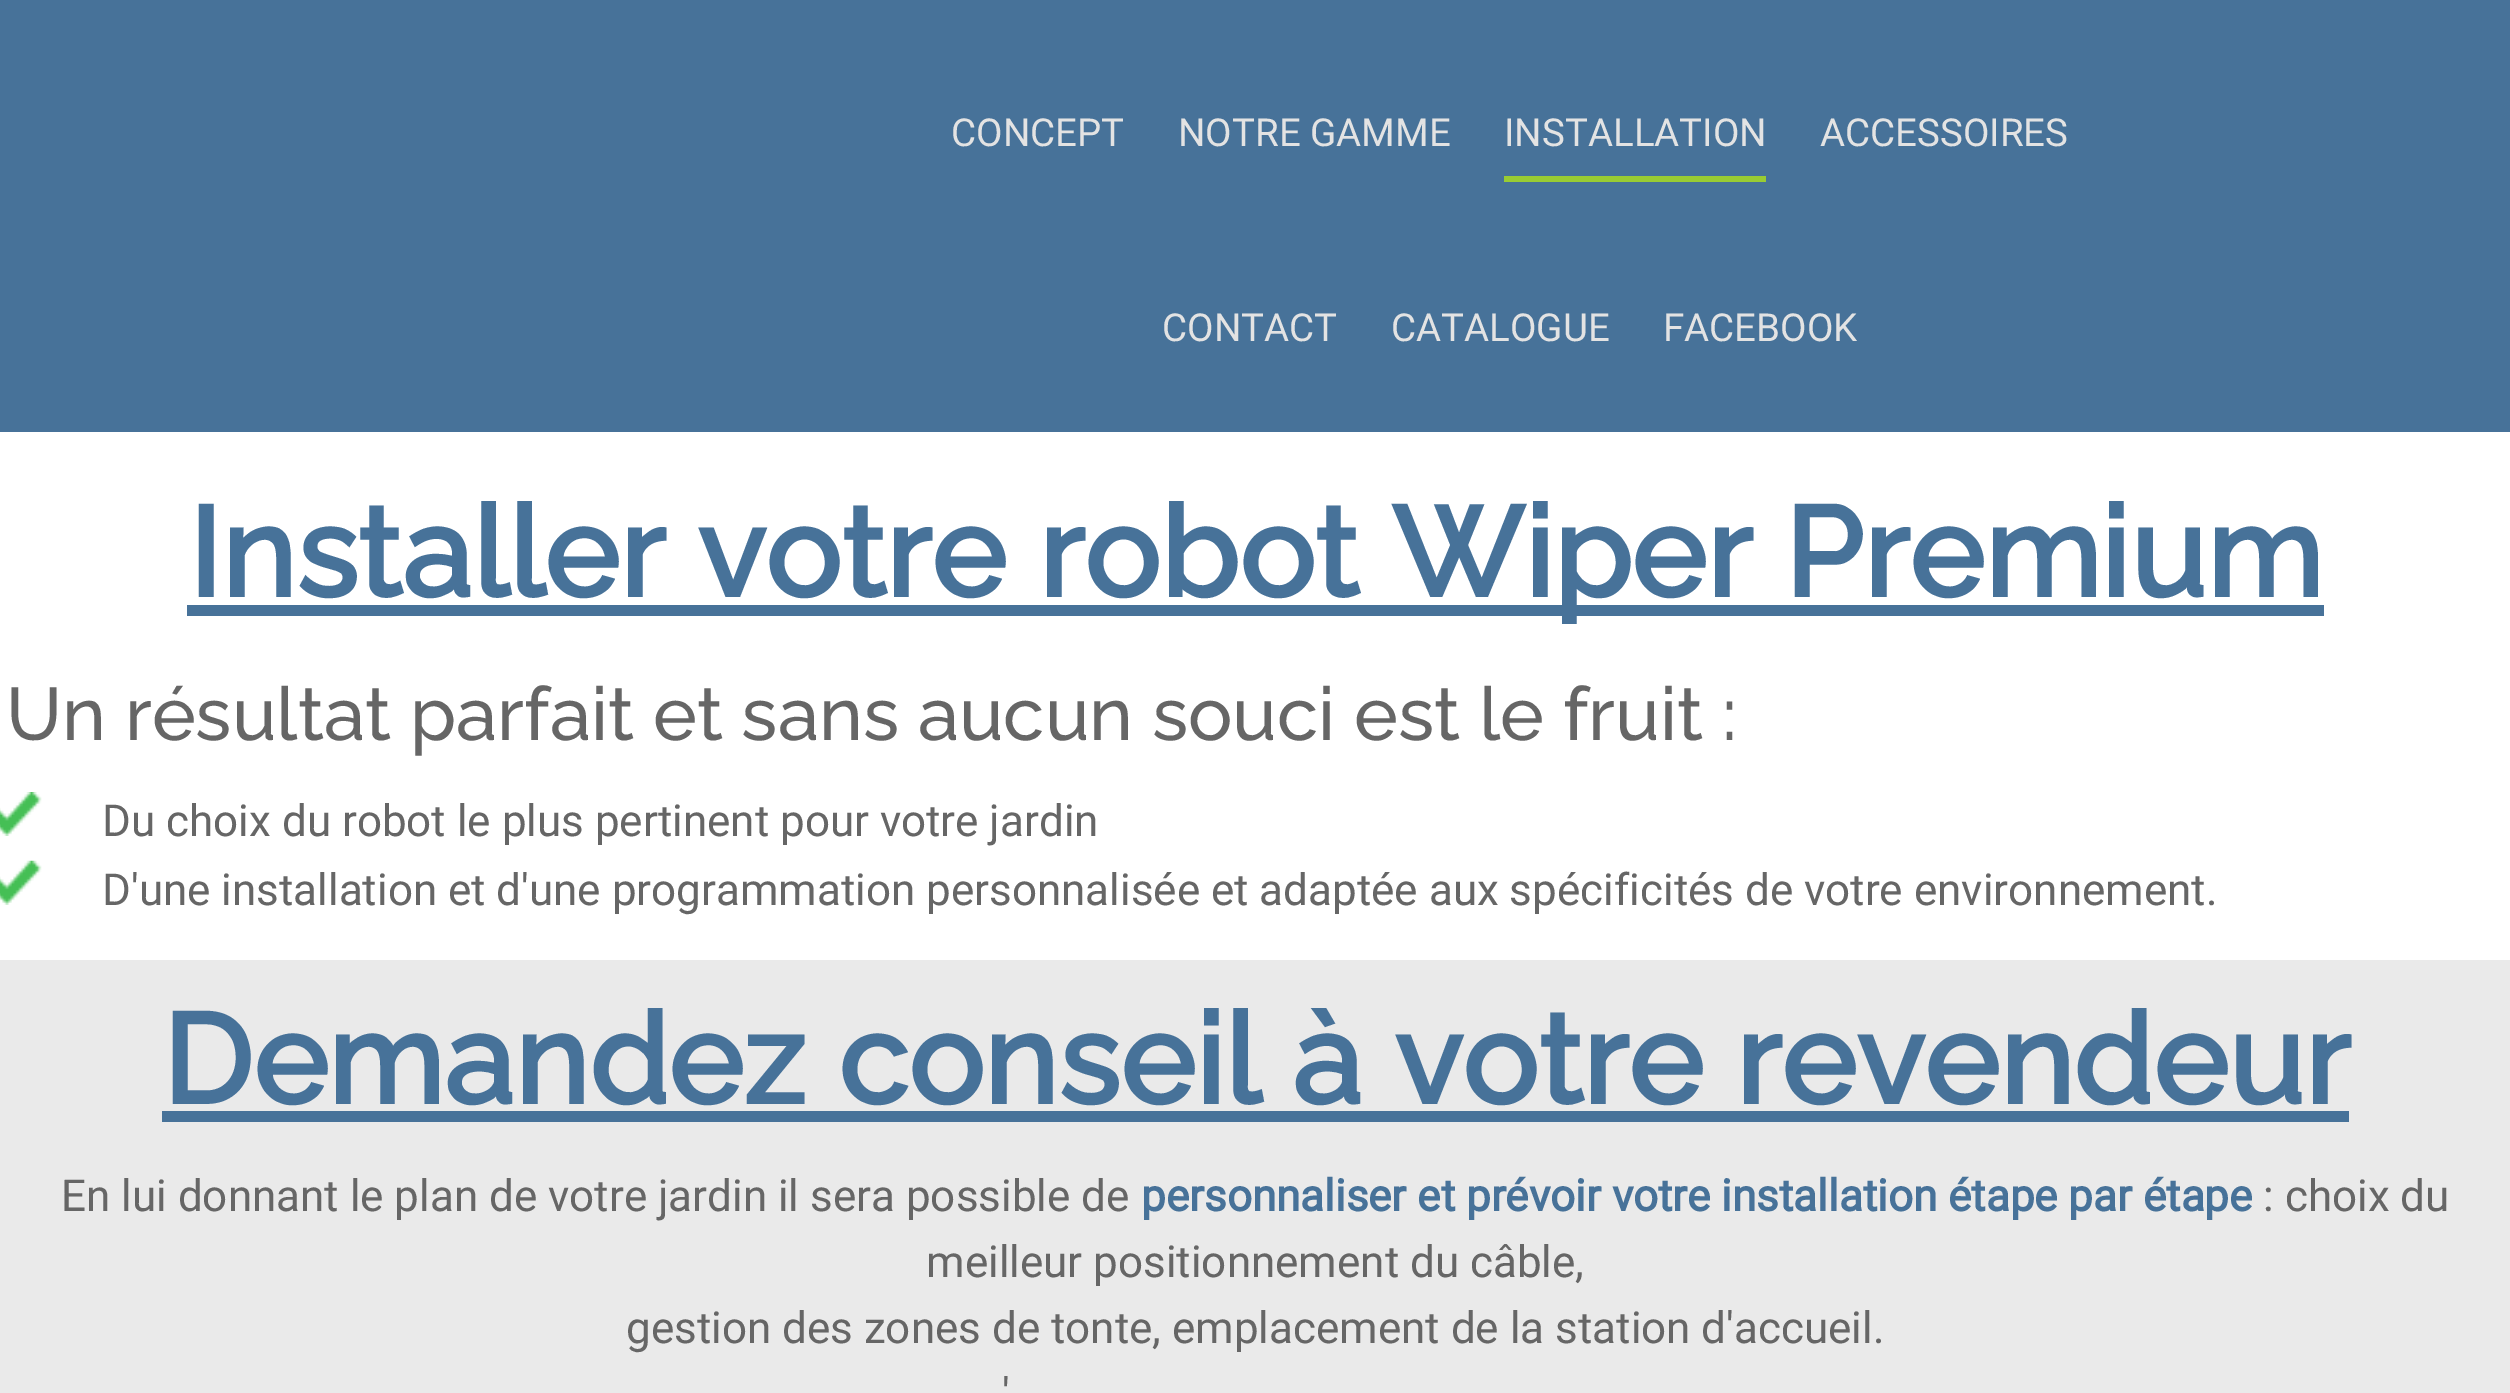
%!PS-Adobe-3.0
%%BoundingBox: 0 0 2510 1393
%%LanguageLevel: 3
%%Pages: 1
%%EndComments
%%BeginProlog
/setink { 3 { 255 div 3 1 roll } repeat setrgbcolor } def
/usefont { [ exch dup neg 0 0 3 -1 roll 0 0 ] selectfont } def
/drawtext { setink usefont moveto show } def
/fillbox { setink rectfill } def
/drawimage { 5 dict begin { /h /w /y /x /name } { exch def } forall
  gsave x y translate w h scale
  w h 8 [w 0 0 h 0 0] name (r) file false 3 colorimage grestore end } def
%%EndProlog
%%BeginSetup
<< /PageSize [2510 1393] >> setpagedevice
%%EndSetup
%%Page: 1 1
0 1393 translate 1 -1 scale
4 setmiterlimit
0 0 2510 1393 255 255 255 fillbox
0 0 2510 432 71 114 153 fillbox
(CONCEPT) 951 146 /Roboto-Regular 38.5 227 227 227 drawtext
(NOTRE GAMME) 1178 146 /Roboto-Regular 38.5 227 227 227 drawtext
(INSTALLATION) 1504 146 /Roboto-Regular 38.5 227 227 227 drawtext
1504 176 262 6 153 204 51 fillbox
(ACCESSOIRES) 1820 146 /Roboto-Regular 38.5 227 227 227 drawtext
(CONTACT) 1162 341 /Roboto-Regular 38.5 227 227 227 drawtext
(CATALOGUE) 1391 341 /Roboto-Regular 38.5 227 227 227 drawtext
(FACEBOOK) 1663 341 /Roboto-Regular 38.5 227 227 227 drawtext
187 605 2137 11 71 114 153 fillbox
(Installer votre robot Wiper Premium) 188 597 /Raleway-Bold 126.5 71 114 153 drawtext
(Un résultat parfait et sans aucun souci est le fruit :) 6 740 /Raleway-Medium 74.25 102 102 102 drawtext
(assets/img1.rgb) 0 792 42 44 drawimage
(Du choix du robot le plus pertinent pour votre jardin) 102 836 /Roboto-Regular 44 102 102 102 drawtext
(assets/img2.rgb) 0 860 42 45 drawimage
(D'une installation et d'une programmation personnalisée et adaptée aux spécificités de votre environnement.) 102 905 /Roboto-Regular 44 102 102 102 drawtext
0 960 2510 433 234 234 234 fillbox
(Demandez conseil à votre revendeur) 162 1104 /Raleway-Bold 126.5 71 114 153 drawtext
162 1111 2187 11 71 114 153 fillbox
(En lui donnant le plan de votre jardin il sera possible de) 61 1211 /Roboto-Regular 44 102 102 102 drawtext
(personnaliser et prévoir votre installation étape par étape) 1141 1211 /Roboto-Bold 44 71 114 153 drawtext
(: choix du) 2263 1211 /Roboto-Regular 44 102 102 102 drawtext
(meilleur positionnement du câble,) 926 1277 /Roboto-Regular 44 102 102 102 drawtext
(gestion des zones de tonte, emplacement de la station d'accueil.) 626 1343 /Roboto-Regular 44 102 102 102 drawtext
(') 1002 1409 /Roboto-Regular 44 102 102 102 drawtext
showpage
%%EOF
